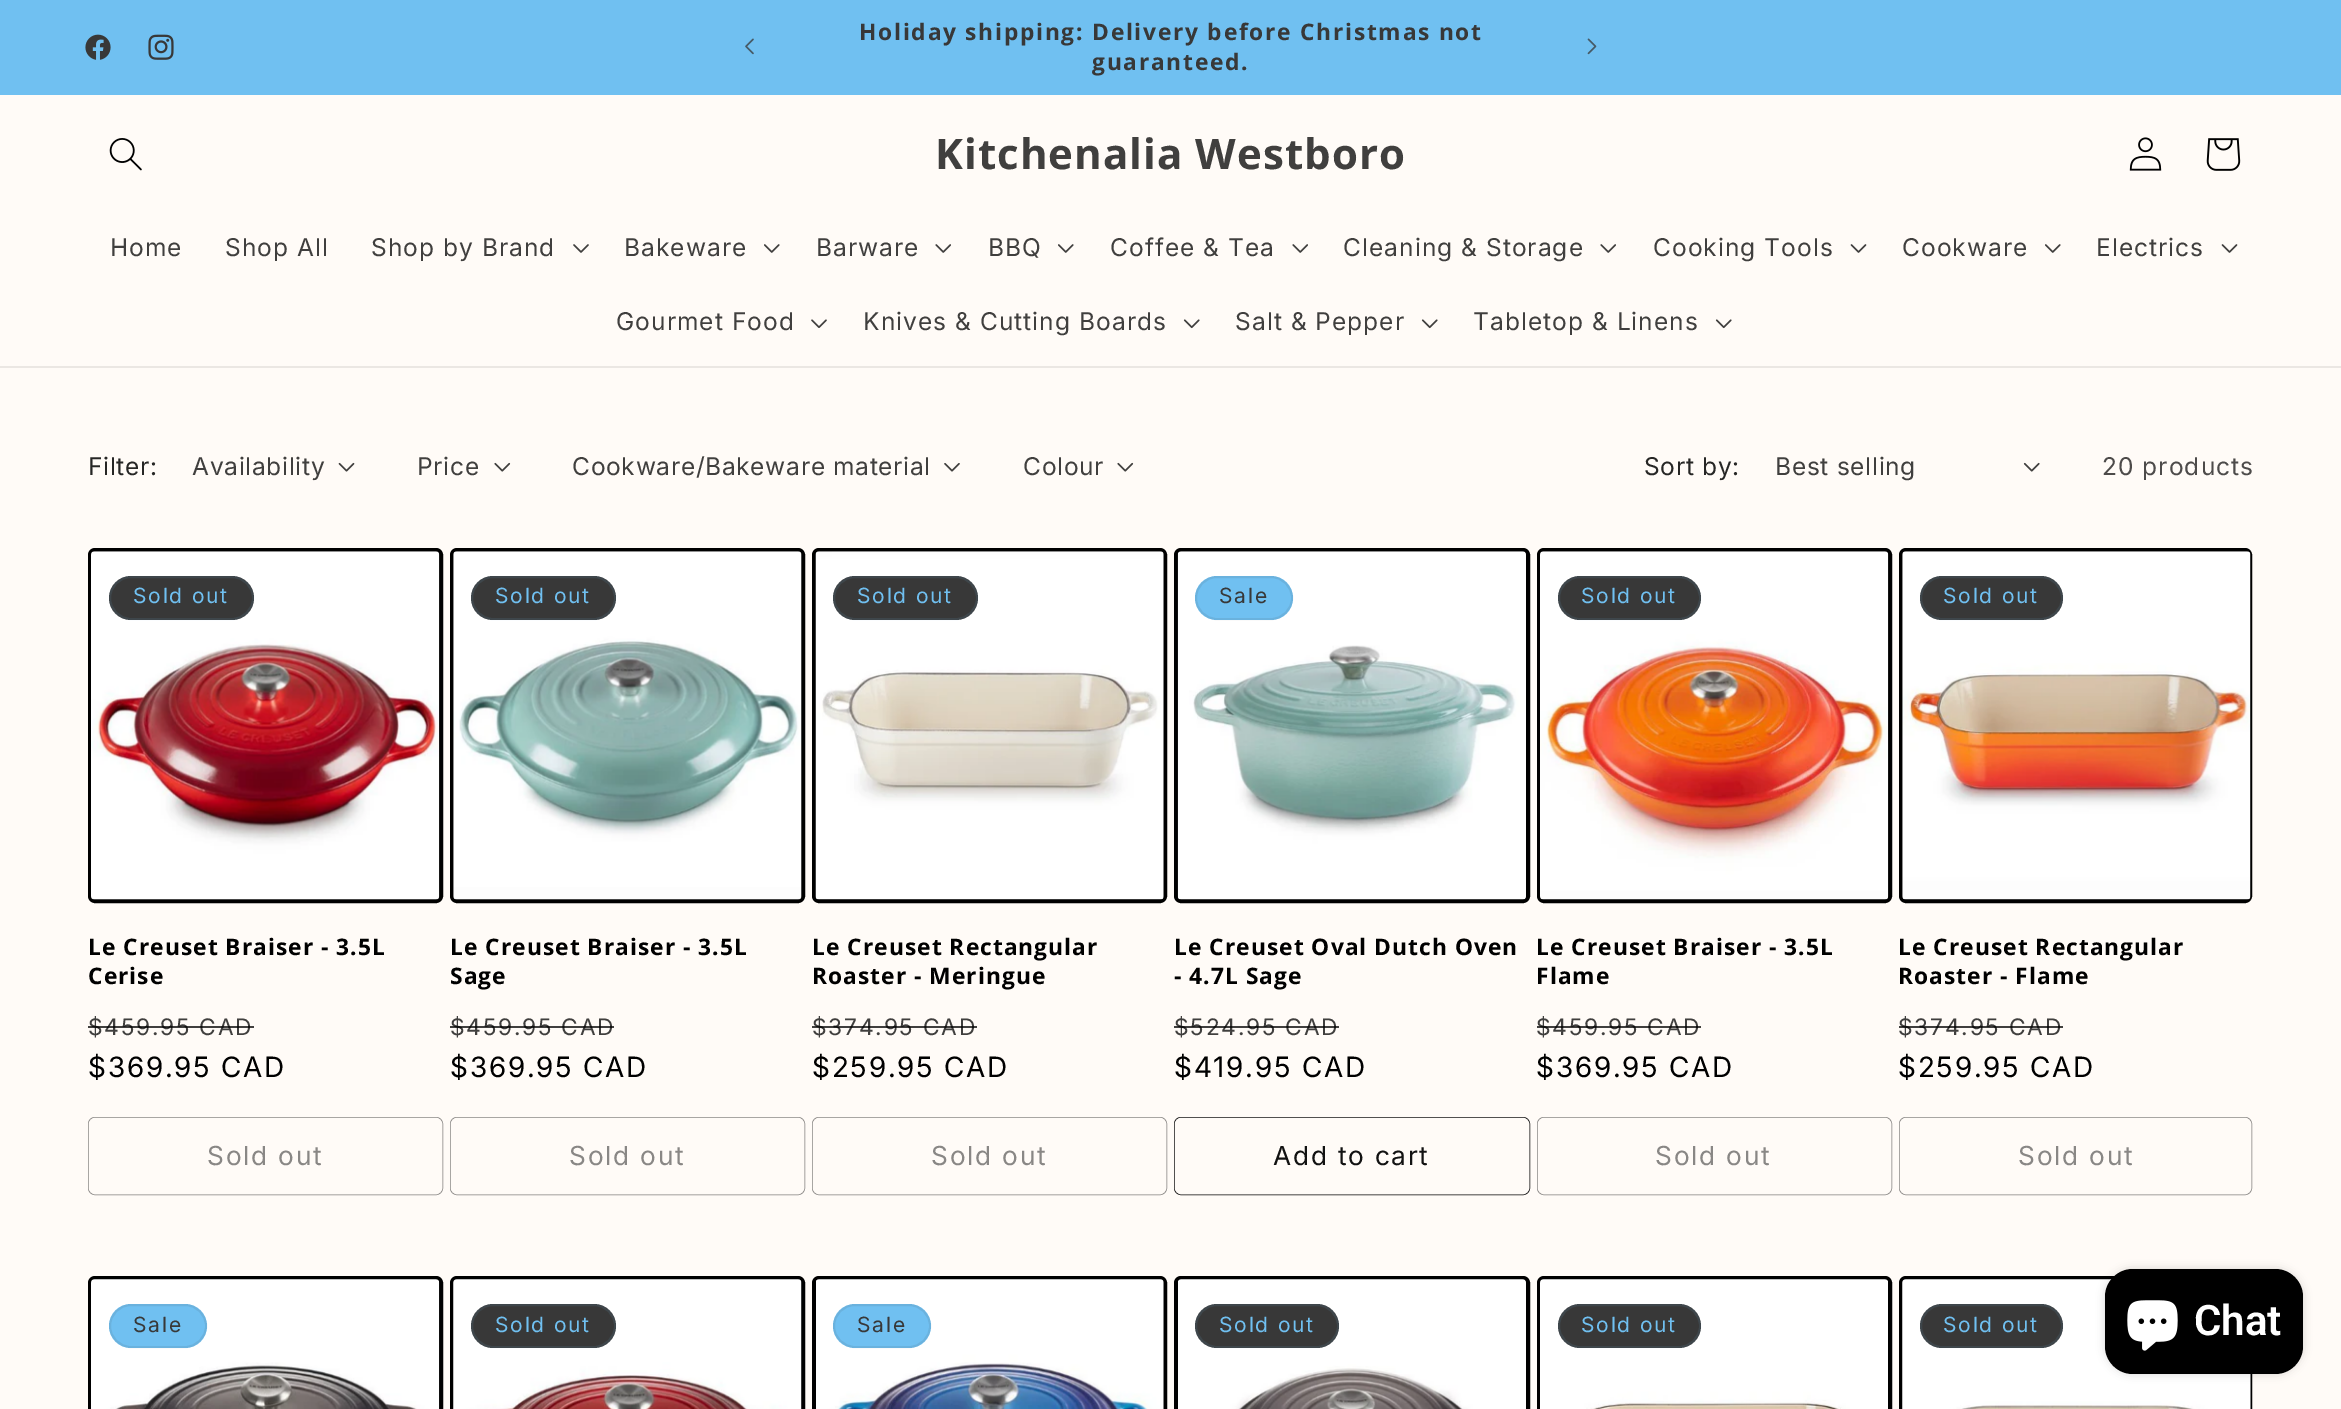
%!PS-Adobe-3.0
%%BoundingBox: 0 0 2341 1409
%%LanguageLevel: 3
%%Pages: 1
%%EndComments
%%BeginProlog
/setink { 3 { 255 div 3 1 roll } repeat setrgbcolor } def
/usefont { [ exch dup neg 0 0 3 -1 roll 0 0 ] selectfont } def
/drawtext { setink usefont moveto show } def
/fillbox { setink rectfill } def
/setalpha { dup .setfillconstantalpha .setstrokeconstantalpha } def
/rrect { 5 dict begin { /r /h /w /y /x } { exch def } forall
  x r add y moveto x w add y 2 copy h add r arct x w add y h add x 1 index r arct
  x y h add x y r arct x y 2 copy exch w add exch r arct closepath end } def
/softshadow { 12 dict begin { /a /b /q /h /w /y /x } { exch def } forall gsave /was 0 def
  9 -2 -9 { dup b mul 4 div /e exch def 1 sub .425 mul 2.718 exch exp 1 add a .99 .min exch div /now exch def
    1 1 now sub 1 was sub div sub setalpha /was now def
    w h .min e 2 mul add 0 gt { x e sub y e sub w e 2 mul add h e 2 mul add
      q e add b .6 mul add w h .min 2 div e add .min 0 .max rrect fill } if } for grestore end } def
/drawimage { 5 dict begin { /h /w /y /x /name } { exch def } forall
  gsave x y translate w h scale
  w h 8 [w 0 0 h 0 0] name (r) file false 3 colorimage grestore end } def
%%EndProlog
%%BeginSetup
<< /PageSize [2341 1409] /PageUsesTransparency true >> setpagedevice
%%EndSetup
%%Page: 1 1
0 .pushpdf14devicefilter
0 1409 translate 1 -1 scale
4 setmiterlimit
0 0 2341 1409 255 251 247 fillbox
0 0 2341 95 112 192 241 fillbox
(assets/img1.rgb) 85 34 26 26 drawimage
(assets/img2.rgb) 148 34 26 26 drawimage
(assets/img3.rgb) 745 38 9 17 drawimage
/OpenSans-Bold 22.75 usefont
56 56 56 setink
859 40 moveto 1.75 0 (Holiday shipping: Delivery before Christmas not) ashow
1092 70 moveto 1.75 0 (guaranteed.) ashow
(assets/img4.rgb) 1587 38 10 17 drawimage
0 366 2341 2 235 231 227 fillbox
(assets/img5.rgb) 109 138 33 33 drawimage
/OpenSans-Bold 42 usefont
64 63 62 setink
935 169 moveto 1.05 0 (Kitchenalia Westboro) ashow
(assets/img6.rgb) 2129 137 33 34 drawimage
(assets/img7.rgb) 2206 138 35 33 drawimage
/Inter-Regular 24.5 usefont
110 256 moveto 1.05 0 (Home) ashow
225 256 moveto 1.05 0 (Shop All) ashow
371 256 moveto 1.05 0 (Shop by Brand) ashow
(assets/img8.rgb) 573 244 16 9 drawimage
624 256 moveto 1.05 0 (Bakeware) ashow
(assets/img9.rgb) 764 244 16 9 drawimage
816 256 moveto 1.05 0 (Barware) ashow
(assets/img10.rgb) 935 244 16 9 drawimage
988 256 moveto 1.05 0 (BBQ) ashow
(assets/img9.rgb) 1058 244 16 9 drawimage
1110 256 moveto 1.05 0 (Coffee & Tea) ashow
(assets/img10.rgb) 1292 244 16 9 drawimage
1343 256 moveto 1.05 0 (Cleaning & Storage) ashow
(assets/img10.rgb) 1600 244 16 9 drawimage
1653 256 moveto 1.05 0 (Cooking Tools) ashow
(assets/img11.rgb) 1850 244 17 9 drawimage
1902 256 moveto 1.05 0 (Cookware) ashow
(assets/img9.rgb) 2045 244 16 9 drawimage
2096 256 moveto 1.05 0 (Electrics) ashow
(assets/img11.rgb) 2221 244 17 9 drawimage
616 330 moveto 1.05 0 (Gourmet Food) ashow
(assets/img12.rgb) 811 319 16 9 drawimage
863 330 moveto 1.05 0 (Knives & Cutting Boards) ashow
(assets/img13.rgb) 1183 319 17 10 drawimage
1235 330 moveto 1.05 0 (Salt & Pepper) ashow
(assets/img13.rgb) 1421 319 17 10 drawimage
1473 330 moveto 1.05 0 (Tabletop & Linens) ashow
(assets/img13.rgb) 1715 319 17 10 drawimage
38 38 37 setink
88 475 moveto 0.7 0 (Filter:) ashow
64 63 62 setink
192 475 moveto 0.7 0 (Availability) ashow
(assets/img14.rgb) 338 462 17 10 drawimage
417 475 moveto 0.7 0 (Price) ashow
(assets/img15.rgb) 494 462 17 10 drawimage
572 475 moveto 0.7 0 (Cookware/Bakeware material) ashow
(assets/img16.rgb) 944 463 16 9 drawimage
1023 475 moveto 0.7 0 (Colour) ashow
(assets/img15.rgb) 1117 462 17 10 drawimage
38 38 37 setink
1644 475 moveto 0.7 0 (Sort by:) ashow
64 63 62 setink
1775 475 moveto 0.7 0 (Best selling) ashow
(assets/img17.rgb) 2023 462 17 10 drawimage
77 75 74 setink
2102 475 moveto 1.05 0 (20 products) ashow
0 0 0 setink
4 setlinewidth
90 550 351 351 5 rrect stroke
(assets/img18.rgb) 91 551 349 349 drawimage
56 56 56 setink
109 576 145 44 22 rrect fill
0.1 setalpha
112 192 241 setink
2 setlinewidth
110 577 143 42 21 rrect stroke
/Inter-Regular 21 usefont
1 setalpha
133 603 moveto 1.75 0 (Sold out) ashow
/OpenSans-Bold 22.75 usefont
0 0 0 setink
88 955 moveto 1.05 0 (Le Creuset Braiser - 3.5L) ashow
88 984 moveto 1.05 0 (Cerise) ashow
/Inter-Regular 22.75 usefont
64 63 62 setink
88 1035 moveto 1.75 0 ($459.95 CAD) ashow
0.75 setalpha
88 1026 166 2 0 0 0 fillbox
/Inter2-Regular 28 usefont
1 setalpha
88 1077 moveto 1.75 0 ($369.95 CAD) ashow
137 135 133 setink
0.5 setlinewidth
88.25 1117.25 354.5 77.5 6.75 rrect stroke
/Inter-Regular 26.25 usefont
207 1165 moveto 1.75 0 (Sold out) ashow
0 0 0 setink
4 setlinewidth
452 550 351 351 5 rrect stroke
(assets/img19.rgb) 453 551 349 349 drawimage
56 56 56 setink
471 576 145 44 22 rrect fill
0.1 setalpha
112 192 241 setink
2 setlinewidth
472 577 143 42 21 rrect stroke
/Inter-Regular 21 usefont
1 setalpha
495 603 moveto 1.75 0 (Sold out) ashow
/OpenSans-Bold 22.75 usefont
0 0 0 setink
450 955 moveto 1.05 0 (Le Creuset Braiser - 3.5L) ashow
450 984 moveto 1.05 0 (Sage) ashow
/Inter-Regular 22.75 usefont
64 63 62 setink
450 1035 moveto 1.75 0 ($459.95 CAD) ashow
0.75 setalpha
450 1026 164 2 0 0 0 fillbox
/Inter2-Regular 28 usefont
1 setalpha
450 1077 moveto 1.75 0 ($369.95 CAD) ashow
137 135 133 setink
0.5 setlinewidth
450.25 1117.25 354.5 77.5 6.75 rrect stroke
/Inter-Regular 26.25 usefont
569 1165 moveto 1.75 0 (Sold out) ashow
0 0 0 setink
4 setlinewidth
814 550 351 351 5 rrect stroke
(assets/img20.rgb) 815 551 349 349 drawimage
56 56 56 setink
833 576 145 44 22 rrect fill
0.1 setalpha
112 192 241 setink
2 setlinewidth
834 577 143 42 21 rrect stroke
/Inter-Regular 21 usefont
1 setalpha
857 603 moveto 1.75 0 (Sold out) ashow
/OpenSans-Bold 22.75 usefont
0 0 0 setink
812 955 moveto 1.05 0 (Le Creuset Rectangular) ashow
812 984 moveto 1.05 0 (Roaster - Meringue) ashow
/Inter-Regular 22.75 usefont
64 63 62 setink
812 1035 moveto 1.75 0 ($374.95 CAD) ashow
0.75 setalpha
812 1026 165 2 0 0 0 fillbox
/Inter2-Regular 28 usefont
1 setalpha
812 1077 moveto 1.75 0 ($259.95 CAD) ashow
137 135 133 setink
0.5 setlinewidth
812.25 1117.25 354.5 77.5 6.75 rrect stroke
/Inter-Regular 26.25 usefont
931 1165 moveto 1.75 0 (Sold out) ashow
0 0 0 setink
4 setlinewidth
1176 550 352 351 5 rrect stroke
(assets/img21.rgb) 1177 551 349 349 drawimage
112 192 241 setink
1195 576 98 44 22 rrect fill
0.1 setalpha
56 56 56 setink
2 setlinewidth
1196 577 96 42 21 rrect stroke
/Inter-Regular 21 usefont
1 setalpha
1219 603 moveto 1.75 0 (Sale) ashow
/OpenSans-Bold 22.75 usefont
0 0 0 setink
1174 955 moveto 1.05 0 (Le Creuset Oval Dutch Oven) ashow
1174 984 moveto 1.05 0 (- 4.7L Sage) ashow
/Inter-Regular 22.75 usefont
64 63 62 setink
1174 1035 moveto 1.75 0 ($524.95 CAD) ashow
0.75 setalpha
1174 1026 165 2 0 0 0 fillbox
/Inter2-Regular 28 usefont
1 setalpha
1174 1077 moveto 1.75 0 ($419.95 CAD) ashow
18 18 18 setink
0.5 setlinewidth
1174.25 1117.25 355.5 77.5 6.75 rrect stroke
/Inter-Regular 26.25 usefont
1273 1165 moveto 1.75 0 (Add to cart) ashow
0 0 0 setink
4 setlinewidth
1539 550 351 351 5 rrect stroke
(assets/img22.rgb) 1540 551 349 349 drawimage
56 56 56 setink
1558 576 143 44 22 rrect fill
0.1 setalpha
112 192 241 setink
2 setlinewidth
1559 577 141 42 21 rrect stroke
/Inter-Regular 21 usefont
1 setalpha
1581 603 moveto 1.75 0 (Sold out) ashow
/OpenSans-Bold 22.75 usefont
0 0 0 setink
1536 955 moveto 1.05 0 (Le Creuset Braiser - 3.5L) ashow
1536 984 moveto 1.05 0 (Flame) ashow
/Inter-Regular 22.75 usefont
64 63 62 setink
1536 1035 moveto 1.75 0 ($459.95 CAD) ashow
0.75 setalpha
1537 1026 164 2 0 0 0 fillbox
/Inter2-Regular 28 usefont
1 setalpha
1536 1077 moveto 1.75 0 ($369.95 CAD) ashow
137 135 133 setink
0.5 setlinewidth
1537.25 1117.25 354.5 77.5 6.75 rrect stroke
/Inter-Regular 26.25 usefont
1655 1165 moveto 1.75 0 (Sold out) ashow
0 0 0 setink
4 setlinewidth
1901 550 349 351 5 rrect stroke
(assets/img23.rgb) 1902 551 349 349 drawimage
56 56 56 setink
1920 576 143 44 22 rrect fill
0.1 setalpha
112 192 241 setink
2 setlinewidth
1921 577 141 42 21 rrect stroke
/Inter-Regular 21 usefont
1 setalpha
1943 603 moveto 1.75 0 (Sold out) ashow
/OpenSans-Bold 22.75 usefont
0 0 0 setink
1898 955 moveto 1.05 0 (Le Creuset Rectangular) ashow
1898 984 moveto 1.05 0 (Roaster - Flame) ashow
/Inter-Regular 22.75 usefont
64 63 62 setink
1898 1035 moveto 1.75 0 ($374.95 CAD) ashow
0.75 setalpha
1899 1026 164 2 0 0 0 fillbox
/Inter2-Regular 28 usefont
1 setalpha
1898 1077 moveto 1.75 0 ($259.95 CAD) ashow
137 135 133 setink
0.5 setlinewidth
1899.25 1117.25 352.5 77.5 6.75 rrect stroke
/Inter-Regular 26.25 usefont
2018 1165 moveto 1.75 0 (Sold out) ashow
0 0 0 setink
4 setlinewidth
90 1278 351 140 5 rrect stroke
(assets/img24.rgb) 91 1279 349 130 drawimage
112 192 241 setink
109 1304 98 44 22 rrect fill
0.1 setalpha
56 56 56 setink
2 setlinewidth
110 1305 96 42 21 rrect stroke
/Inter-Regular 21 usefont
1 setalpha
133 1332 moveto 1.75 0 (Sale) ashow
0 0 0 setink
4 setlinewidth
452 1278 351 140 5 rrect stroke
(assets/img25.rgb) 453 1279 349 130 drawimage
56 56 56 setink
471 1304 145 44 22 rrect fill
0.1 setalpha
112 192 241 setink
2 setlinewidth
472 1305 143 42 21 rrect stroke
1 setalpha
495 1332 moveto 1.75 0 (Sold out) ashow
0 0 0 setink
4 setlinewidth
814 1278 351 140 5 rrect stroke
(assets/img26.rgb) 816 1279 348 130 drawimage
112 192 241 setink
833 1304 98 44 22 rrect fill
0.1 setalpha
56 56 56 setink
2 setlinewidth
834 1305 96 42 21 rrect stroke
1 setalpha
857 1332 moveto 1.75 0 (Sale) ashow
0 0 0 setink
4 setlinewidth
1176 1278 352 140 5 rrect stroke
(assets/img27.rgb) 1178 1279 348 130 drawimage
56 56 56 setink
1195 1304 144 44 22 rrect fill
0.1 setalpha
112 192 241 setink
2 setlinewidth
1196 1305 142 42 21 rrect stroke
1 setalpha
1219 1332 moveto 1.75 0 (Sold out) ashow
0 0 0 setink
4 setlinewidth
1539 1278 351 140 5 rrect stroke
(assets/img28.rgb) 1540 1279 348 130 drawimage
56 56 56 setink
1558 1304 143 44 22 rrect fill
0.1 setalpha
112 192 241 setink
2 setlinewidth
1559 1305 141 42 21 rrect stroke
1 setalpha
1581 1332 moveto 1.75 0 (Sold out) ashow
0 0 0 setink
4 setlinewidth
1901 1278 349 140 5 rrect stroke
(assets/img29.rgb) 1902 1279 349 130 drawimage
56 56 56 setink
1920 1304 143 44 22 rrect fill
0.1 setalpha
112 192 241 setink
2 setlinewidth
1921 1305 141 42 21 rrect stroke
1 setalpha
1943 1332 moveto 1.75 0 (Sold out) ashow
0 0 0 setink
2105 1269 198 105 28 4.5 0.15 softshadow
2105 1269 198 105 28 rrect fill
(assets/img30.rgb) 2127 1300 51 51 drawimage
(Chat) 2194 1335 /Roboto-SemiBold 42 255 255 255 drawtext
.poppdf14devicefilter showpage
%%EOF
